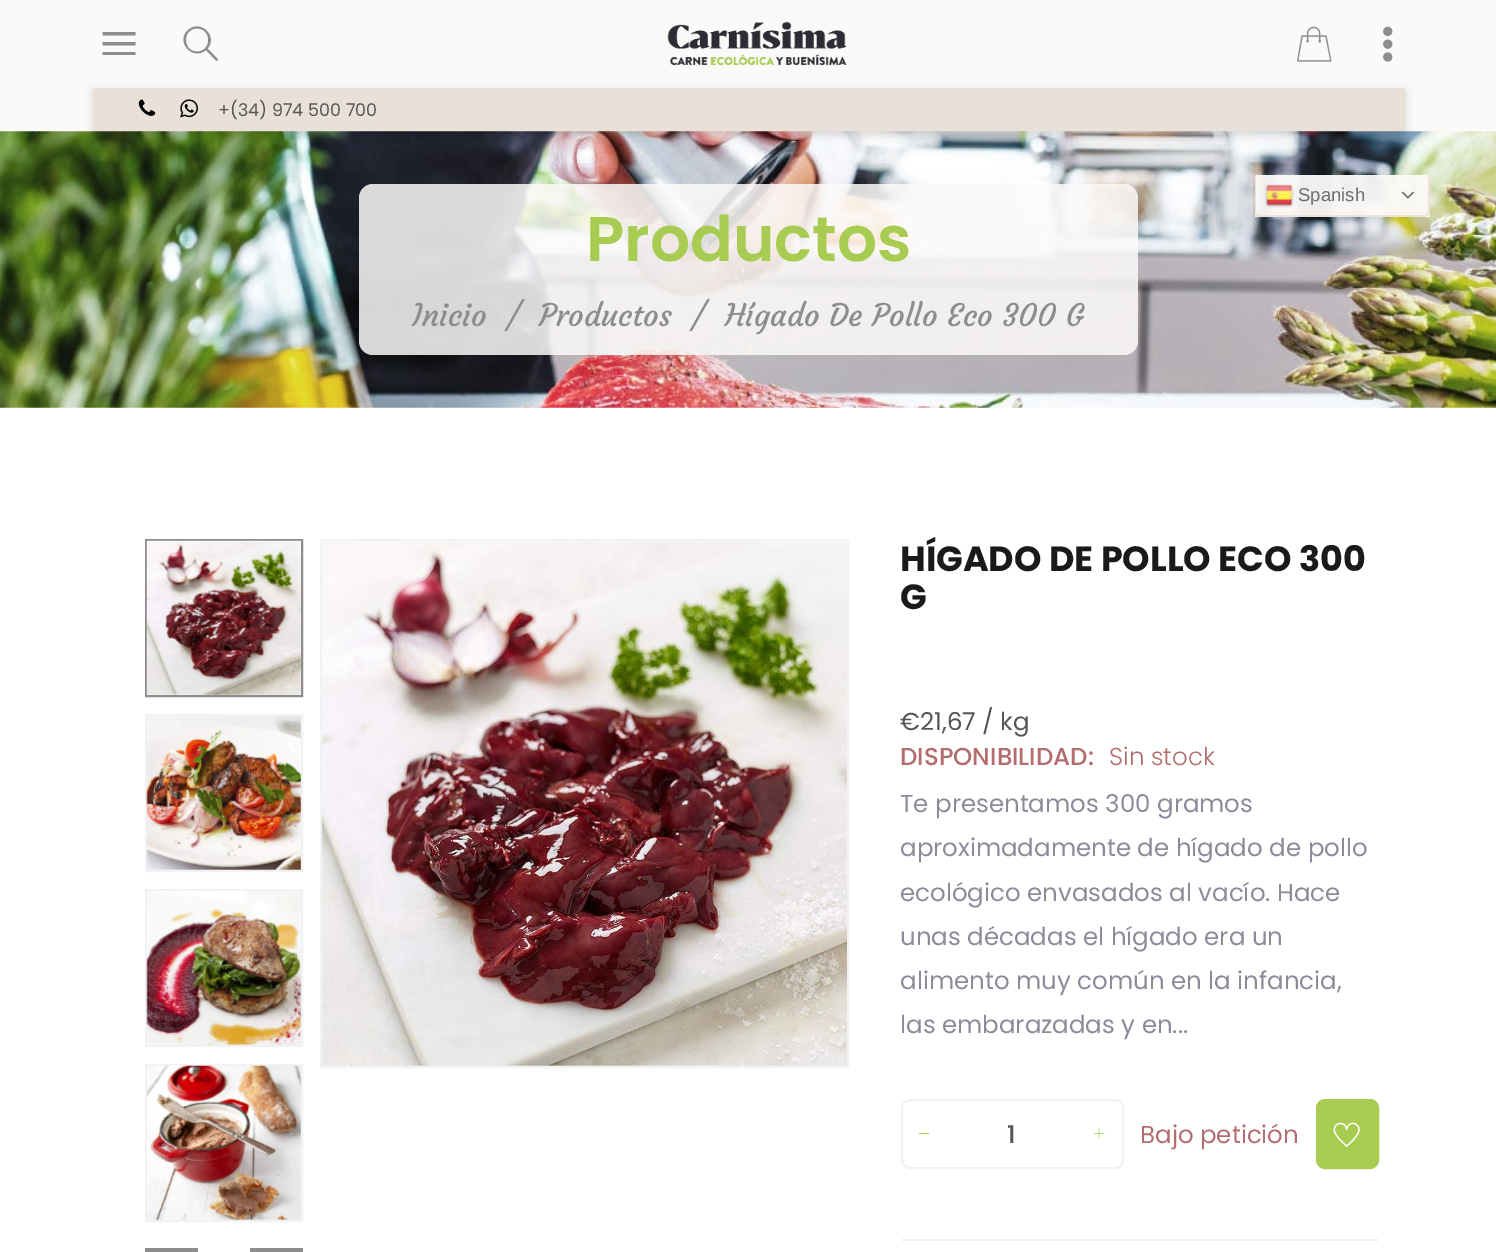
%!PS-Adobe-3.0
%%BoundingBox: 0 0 1496 1252
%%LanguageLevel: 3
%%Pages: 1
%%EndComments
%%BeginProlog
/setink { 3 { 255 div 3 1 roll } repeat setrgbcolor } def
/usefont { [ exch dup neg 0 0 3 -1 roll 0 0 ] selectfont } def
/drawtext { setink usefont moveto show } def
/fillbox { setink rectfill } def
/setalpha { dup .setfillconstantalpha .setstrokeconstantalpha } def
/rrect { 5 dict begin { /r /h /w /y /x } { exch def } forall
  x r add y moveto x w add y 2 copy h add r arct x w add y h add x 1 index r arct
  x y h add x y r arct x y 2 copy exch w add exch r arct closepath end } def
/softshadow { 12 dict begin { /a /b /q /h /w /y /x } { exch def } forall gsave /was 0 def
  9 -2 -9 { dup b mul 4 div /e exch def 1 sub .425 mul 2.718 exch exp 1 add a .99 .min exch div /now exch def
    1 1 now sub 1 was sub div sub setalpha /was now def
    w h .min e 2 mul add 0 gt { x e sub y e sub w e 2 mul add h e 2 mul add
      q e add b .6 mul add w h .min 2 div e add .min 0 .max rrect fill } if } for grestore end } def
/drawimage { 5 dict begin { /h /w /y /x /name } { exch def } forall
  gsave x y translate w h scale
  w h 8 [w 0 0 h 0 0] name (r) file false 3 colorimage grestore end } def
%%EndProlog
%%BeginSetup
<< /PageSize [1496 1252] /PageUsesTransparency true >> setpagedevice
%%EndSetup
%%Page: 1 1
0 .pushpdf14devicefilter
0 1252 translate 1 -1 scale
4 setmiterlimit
0 0 1496 1252 255 255 255 fillbox
0 0 1496 131 252 250 248 fillbox
141 141 141 setink
102.5 42 moveto 135.5 42 lineto 135.5 45.5 lineto 102.5 45.5 lineto closepath 102.5 32 moveto 135.5 32 lineto 135.5 35.5 lineto 102.5 35.5 lineto closepath 102.5 52 moveto 135.5 52 lineto 135.5 55 lineto 102.5 55 lineto closepath fill
218 59.5 moveto 207.5 48.5 lineto 218.5 36 200 18.5 187.5 30.5 curveto 175.5 42.5 193 61 206 50 curveto 216.5 61 lineto closepath 197 51.5 moveto 182.5 51.5 182 28.5 197 28.5 curveto 212 28.5 212 51.5 197 51.5 curveto closepath fill
(assets/img1.rgb) 667 21 180 44 drawimage
(assets/img2.rgb) 1297 26 35 36 drawimage
(assets/img3.rgb) 1383 26 10 36 drawimage
(assets/img8.rgb) 0 131 1496 277 drawimage
0 0 0 setink
93 91 1312 44 0 4.5 0.15 softshadow
93 88 1312 43 233 225 215 fillbox
(assets/img4.rgb) 138 99 18 17 drawimage
(assets/img5.rgb) 180 99 18 19 drawimage
(+\(34\) 974 500 700) 218 116 /Poppins-Regular 17.5 85 85 86 drawtext
0.95 setalpha
1255 175 175 42 252 250 248 fillbox
237 224 212 setink
1255 175 moveto 1430 175 lineto 1430 212 lineto 1430 215 1427 217 1424 217 curveto 1260 217 lineto 1257 217 1255 215 1255 212 curveto closepath 1256 175 moveto 1428 175 lineto 1428 212 lineto 1428 214 1426 215 1424 215 curveto 1260 215 lineto 1258 215 1256 214 1256 212 curveto closepath eofill
1 setalpha
(assets/img6.rgb) 1265 184 29 24 drawimage
(Spanish) 1298 201 /LiberationSans-Regular 18.5 109 109 109 drawtext
(assets/img7.rgb) 1402 191 12 8 drawimage
0.85 setalpha
252 250 248 setink
359 184 779 171 14 rrect fill
1 setalpha
(Productos) 586 261 /Poppins-SemiBold 63 168 204 82 drawtext
(Inicio) 412 326 /Courgette-Regular 30.6 141 141 141 drawtext
(/) 507 326 /Courgette-Regular 30.6 141 141 141 drawtext
(Productos) 539 326 /Courgette-Regular 30.6 141 141 141 drawtext
(/) 692 326 /Courgette-Regular 30.6 141 141 141 drawtext
(Hígado De Pollo Eco 300 G) 725 326 /Courgette-Regular 30.6 141 141 141 drawtext
2 setlinewidth
146 540 156 156 rectstroke
(assets/img9.rgb) 146 540 155 155 drawimage
241 242 244 setink
146 715 156 156 rectstroke
(assets/img10.rgb) 146 716 155 154 drawimage
146 890 156 156 rectstroke
(assets/img11.rgb) 146 891 155 154 drawimage
146 1065 156 156 rectstroke
(assets/img12.rgb) 146 1065 155 155 drawimage
145 1248 53 4 141 141 141 fillbox
250 1248 53 4 141 141 141 fillbox
241 242 244 setink
321 540 527 527 rectstroke
(assets/img13.rgb) 322 541 525 525 drawimage
(HÍGADO DE POLLO ECO 300) 900 571 /Poppins-Bold 35 26 26 26 drawtext
(G) 900 609 /Poppins-Bold 35 26 26 26 drawtext
(€21,67 / kg) 900 730 /Poppins-Regular 24.5 85 85 86 drawtext
(DISPONIBILIDAD:) 900 765 /Poppins-Medium 24.5 179 109 111 drawtext
(Sin stock) 1109 765 /Poppins-Light 24.5 179 109 111 drawtext
(Te presentamos 300 gramos) 900 812 /Poppins-Regular 24.5 139 139 153 drawtext
(aproximadamente de hígado de pollo) 900 856 /Poppins-Regular 24.5 139 139 153 drawtext
(ecológico envasados al vacío. Hace) 900 901 /Poppins-Regular 24.5 139 139 153 drawtext
(unas décadas el hígado era un) 900 945 /Poppins-Regular 24.5 139 139 153 drawtext
(alimento muy común en la infancia,) 900 989 /Poppins-Regular 24.5 139 139 153 drawtext
(las embarazadas y en...) 900 1033 /Poppins-Regular 24.5 139 139 153 drawtext
241 242 244 setink
902 1100 221 68 8 rrect stroke
(1) 1007 1143 /Poppins-Medium 24.5 85 85 86 drawtext
919 1133 10 1 168 204 82 fillbox
(assets/img14.rgb) 1093 1128 12 11 drawimage
(Bajo petición) 1140 1143 /Poppins-Regular 24.5 179 109 111 drawtext
168 204 82 setink
1317 1100 61 68 8 rrect gsave fill grestore
stroke
(assets/img15.rgb) 1333 1122 27 25 drawimage
901 1239 478 2 241 242 244 fillbox
.poppdf14devicefilter showpage
%%EOF
